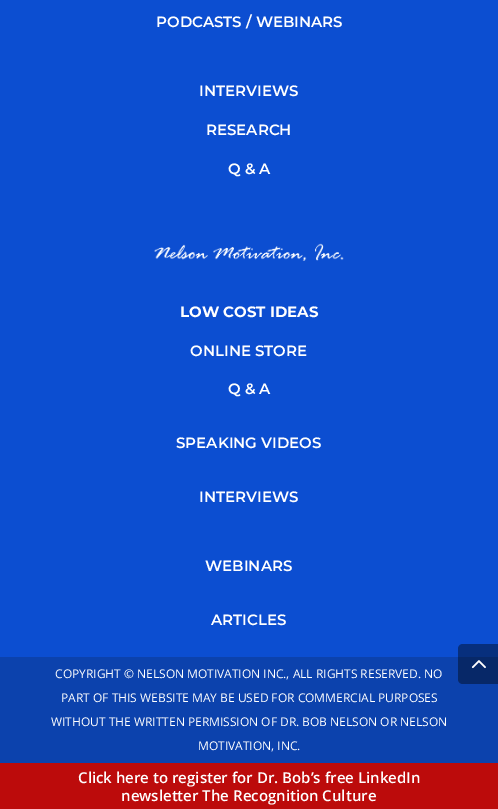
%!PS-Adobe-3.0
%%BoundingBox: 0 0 498 809
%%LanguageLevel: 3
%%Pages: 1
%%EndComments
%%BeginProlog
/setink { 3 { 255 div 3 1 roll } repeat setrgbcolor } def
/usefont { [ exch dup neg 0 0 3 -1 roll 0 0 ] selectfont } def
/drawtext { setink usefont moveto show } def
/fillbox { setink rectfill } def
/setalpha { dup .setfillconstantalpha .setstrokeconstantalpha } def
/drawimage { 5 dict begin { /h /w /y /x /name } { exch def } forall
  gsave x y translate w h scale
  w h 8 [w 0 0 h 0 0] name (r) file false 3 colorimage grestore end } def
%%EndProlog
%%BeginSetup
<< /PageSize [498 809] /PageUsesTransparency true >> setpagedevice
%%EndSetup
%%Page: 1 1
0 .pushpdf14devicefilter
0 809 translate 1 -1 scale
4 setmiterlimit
0 0 498 809 12 78 209 fillbox
(PODCASTS / WEBINARS) 156 27 /Montserrat-SemiBold 15 255 255 255 drawtext
(INTERVIEWS) 199 96 /Montserrat-SemiBold 15 255 255 255 drawtext
(RESEARCH) 206 135 /Montserrat-SemiBold 15 255 255 255 drawtext
(Q & A) 228 174 /Montserrat-SemiBold 15 255 255 255 drawtext
(assets/img1.rgb) 154 243 190 18 drawimage
(LOW COST IDEAS) 180 317 /Montserrat-Bold 15 255 255 255 drawtext
(ONLINE STORE) 190 356 /Montserrat-SemiBold 15 255 255 255 drawtext
(Q & A) 228 394 /Montserrat-SemiBold 15 255 255 255 drawtext
(SPEAKING VIDEOS) 176 448 /Montserrat-SemiBold 15 255 255 255 drawtext
(INTERVIEWS) 199 502 /Montserrat-SemiBold 15 255 255 255 drawtext
(WEBINARS) 205 571 /Montserrat-SemiBold 15 255 255 255 drawtext
(ARTICLES) 211 625 /Montserrat-SemiBold 15 255 255 255 drawtext
0 657 498 106 12 66 173 fillbox
(COPYRIGHT © NELSON MOTIVATION INC., ALL RIGHTS RESERVED. NO) 55 678 /OpenSans-Regular 12 255 255 255 drawtext
(PART OF THIS WEBSITE MAY BE USED FOR COMMERCIAL PURPOSES) 61 702 /OpenSans-Regular 12 255 255 255 drawtext
(WITHOUT THE WRITTEN PERMISSION OF DR. BOB NELSON OR NELSON) 51 726 /OpenSans-Regular 12 255 255 255 drawtext
(MOTIVATION, INC.) 198 750 /OpenSans-Regular 12 255 255 255 drawtext
0 763 498 46 188 11 11 fillbox
(Click here to register for Dr. Bob’s free LinkedIn) 78 783 /OpenSans-SemiBold 15 255 255 255 drawtext
(newsletter The Recognition Culture) 121 801 /OpenSans-SemiBold 15 255 255 255 drawtext
0.4 setalpha
0 0 0 setink
463 644 moveto 498 644 lineto 498 684 lineto 463 684 lineto 460 684 458 682 458 679 curveto 458 649 lineto 458 646 460 644 463 644 curveto closepath fill
1 setalpha
(assets/img2.rgb) 471 660 15 9 drawimage
.poppdf14devicefilter showpage
%%EOF
